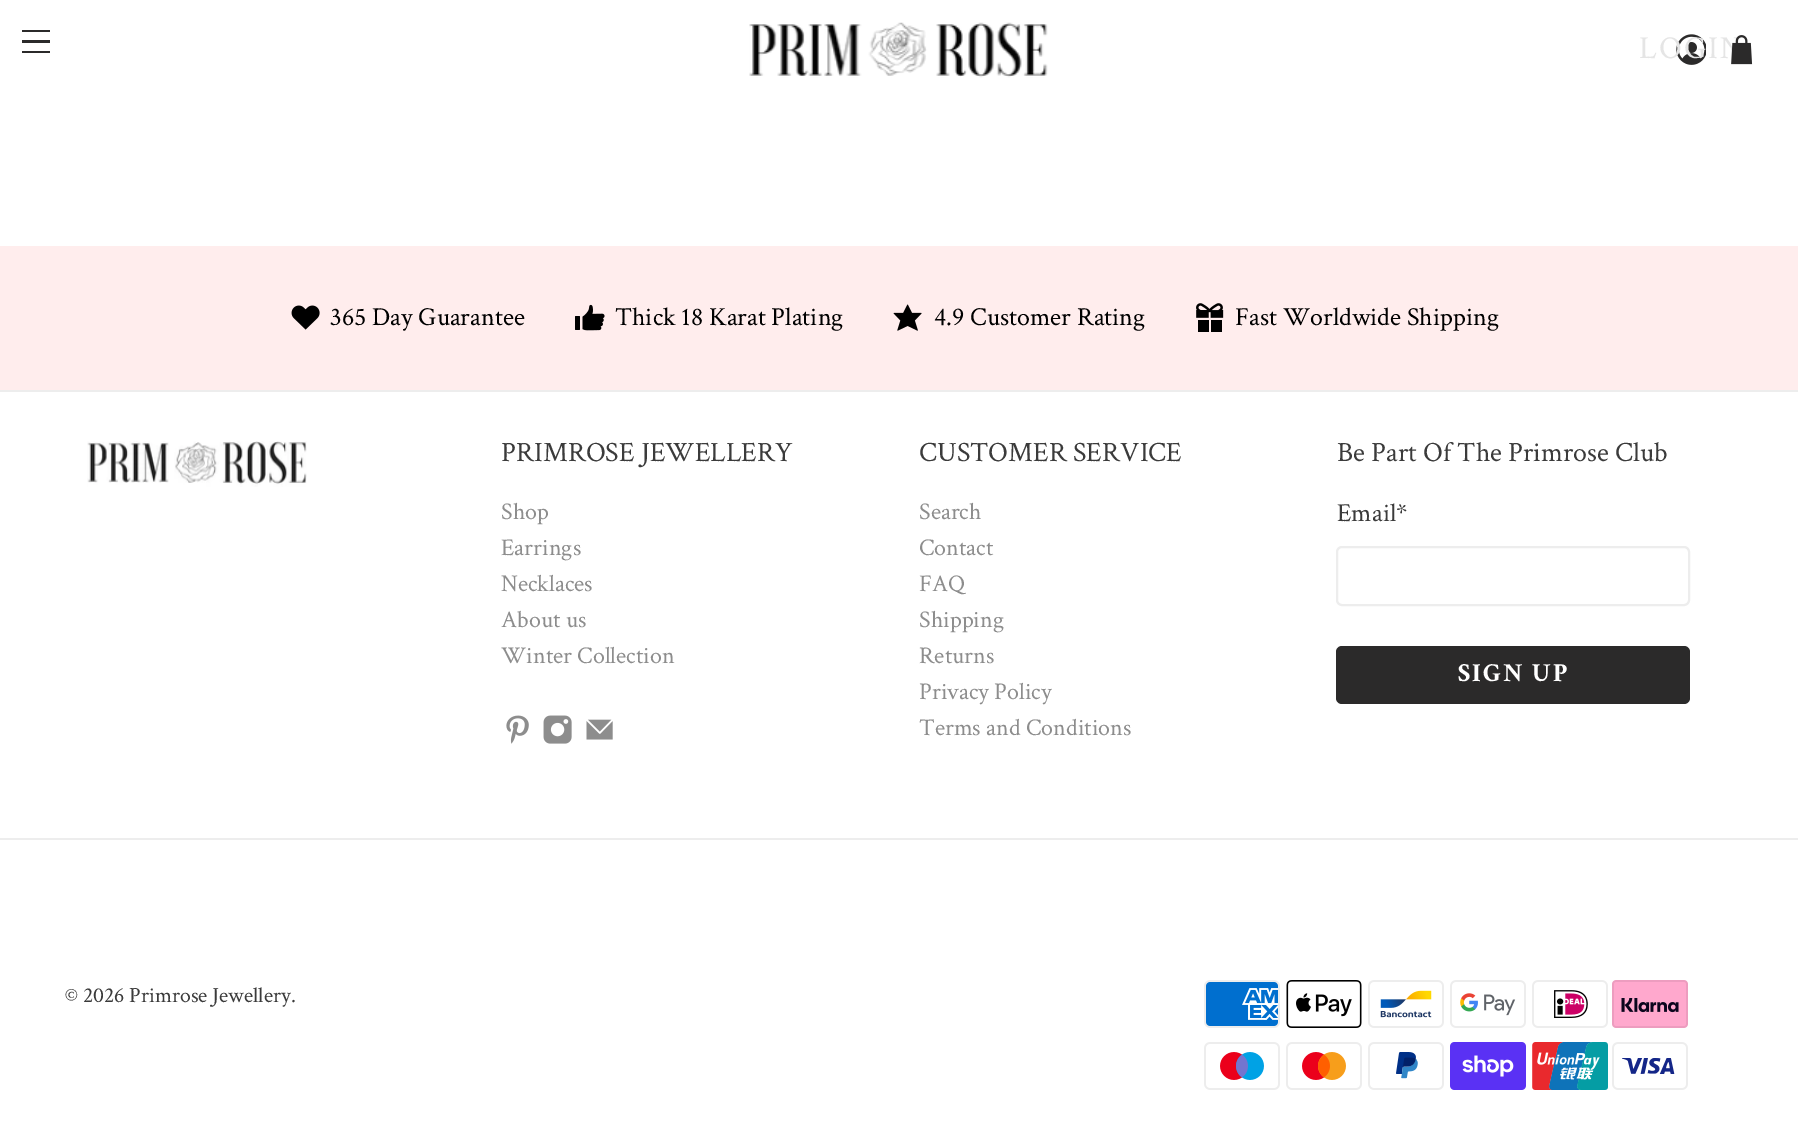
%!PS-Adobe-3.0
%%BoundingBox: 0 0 1798 1141
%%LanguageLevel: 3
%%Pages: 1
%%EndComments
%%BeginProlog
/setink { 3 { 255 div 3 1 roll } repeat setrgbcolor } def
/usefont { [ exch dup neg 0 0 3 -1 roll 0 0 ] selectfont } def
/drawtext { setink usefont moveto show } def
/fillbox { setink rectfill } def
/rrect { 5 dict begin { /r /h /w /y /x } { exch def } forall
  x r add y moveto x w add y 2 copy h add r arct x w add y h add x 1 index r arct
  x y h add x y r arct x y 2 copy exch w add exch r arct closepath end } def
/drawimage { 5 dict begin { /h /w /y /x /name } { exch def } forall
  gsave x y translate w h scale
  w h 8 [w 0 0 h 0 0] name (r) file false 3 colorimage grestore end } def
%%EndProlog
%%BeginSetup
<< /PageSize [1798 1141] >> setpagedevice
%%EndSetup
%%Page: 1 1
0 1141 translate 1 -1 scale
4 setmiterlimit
0 0 1798 1141 255 255 255 fillbox
22 30 28 2 43 42 42 fillbox
22 40 28 3 43 42 42 fillbox
22 51 28 2 43 42 42 fillbox
(assets/img1.rgb) 749 22 299 56 drawimage
(assets/img3.rgb) 1676 34 30 31 drawimage
/CrimsonText-Regular 32 usefont
229 229 229 setink
1639 58 moveto 2 0 (LOGIN) ashow
(assets/img2.rgb) 1731 35 22 30 drawimage
0 246 1798 144 255 237 237 fillbox
(assets/img4.rgb) 291 305 29 25 drawimage
(365 Day Guarantee) 330 325 /CrimsonText-Regular 26 0 0 0 drawtext
(assets/img5.rgb) 575 304 30 27 drawimage
(Thick 18 Karat Plating) 615 325 /CrimsonText-Regular 26 0 0 0 drawtext
(assets/img6.rgb) 893 304 29 27 drawimage
(4.9 Customer Rating) 934 325 /CrimsonText-Regular 26 0 0 0 drawtext
(assets/img7.rgb) 1196 303 28 29 drawimage
(Fast Worldwide Shipping) 1235 325 /CrimsonText-Regular 26 0 0 0 drawtext
0 390 1798 2 237 237 237 fillbox
0 838 1798 2 237 237 237 fillbox
(assets/img8.rgb) 87 441 220 46 drawimage
(PRIMROSE JEWELLERY) 501 461 /CrimsonText-Regular 28 59 59 59 drawtext
(Shop) 501 519 /CrimsonText-Regular 24 141 141 141 drawtext
(Earrings) 501 555 /CrimsonText-Regular 24 141 141 141 drawtext
(Necklaces) 501 591 /CrimsonText-Regular 24 141 141 141 drawtext
(About us) 501 627 /CrimsonText-Regular 24 141 141 141 drawtext
(Winter Collection) 501 663 /CrimsonText-Regular 24 141 141 141 drawtext
(assets/img9.rgb) 506 715 23 29 drawimage
(assets/img10.rgb) 543 715 29 29 drawimage
(assets/img11.rgb) 586 719 27 21 drawimage
(CUSTOMER SERVICE) 919 461 /CrimsonText-Regular 28 59 59 59 drawtext
(Search) 919 519 /CrimsonText-Regular 24 141 141 141 drawtext
(Contact) 919 555 /CrimsonText-Regular 24 141 141 141 drawtext
(FAQ) 919 591 /CrimsonText-Regular 24 141 141 141 drawtext
(Shipping) 919 627 /CrimsonText-Regular 24 141 141 141 drawtext
(Returns) 919 663 /CrimsonText-Regular 24 141 141 141 drawtext
(Privacy Policy) 919 699 /CrimsonText-Regular 24 141 141 141 drawtext
(Terms and Conditions) 919 735 /CrimsonText-Regular 24 141 141 141 drawtext
(Be Part Of The Primrose Club) 1337 461 /CrimsonText-Regular 28 59 59 59 drawtext
(Email*) 1337 521 /CrimsonText-Regular 26 59 59 59 drawtext
237 237 237 setink
2 setlinewidth
1337 547 352 58 5 rrect stroke
43 42 42 setink
1336 646 354 58 6 rrect fill
/CrimsonText-Bold 26 usefont
255 255 255 setink
1458 681 moveto 2 0 (SIGN UP) ashow
(© 2026 Primrose Jewellery.) 65 1002 /CrimsonText-Regular 21.75 59 59 59 drawtext
(assets/img12.rgb) 1204 980 76 48 drawimage
(assets/img13.rgb) 1286 980 76 48 drawimage
(assets/img14.rgb) 1368 980 76 48 drawimage
(assets/img15.rgb) 1450 980 76 48 drawimage
(assets/img16.rgb) 1532 980 76 48 drawimage
(assets/img17.rgb) 1612 980 76 48 drawimage
(assets/img18.rgb) 1204 1042 76 48 drawimage
(assets/img19.rgb) 1286 1042 76 48 drawimage
(assets/img20.rgb) 1368 1042 76 48 drawimage
(assets/img21.rgb) 1450 1042 76 48 drawimage
(assets/img22.rgb) 1532 1042 76 48 drawimage
(assets/img23.rgb) 1612 1042 76 48 drawimage
showpage
%%EOF
